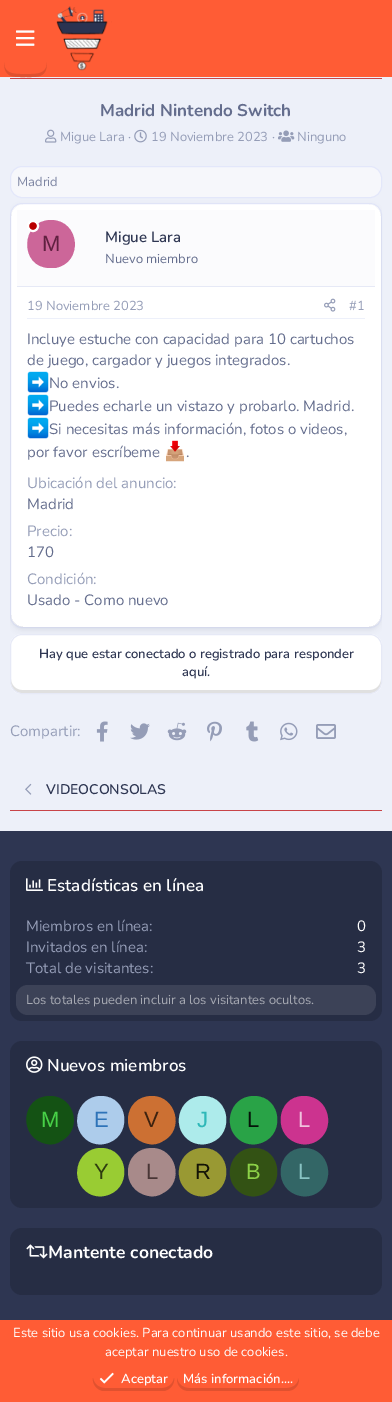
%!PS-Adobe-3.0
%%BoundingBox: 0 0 392 1402
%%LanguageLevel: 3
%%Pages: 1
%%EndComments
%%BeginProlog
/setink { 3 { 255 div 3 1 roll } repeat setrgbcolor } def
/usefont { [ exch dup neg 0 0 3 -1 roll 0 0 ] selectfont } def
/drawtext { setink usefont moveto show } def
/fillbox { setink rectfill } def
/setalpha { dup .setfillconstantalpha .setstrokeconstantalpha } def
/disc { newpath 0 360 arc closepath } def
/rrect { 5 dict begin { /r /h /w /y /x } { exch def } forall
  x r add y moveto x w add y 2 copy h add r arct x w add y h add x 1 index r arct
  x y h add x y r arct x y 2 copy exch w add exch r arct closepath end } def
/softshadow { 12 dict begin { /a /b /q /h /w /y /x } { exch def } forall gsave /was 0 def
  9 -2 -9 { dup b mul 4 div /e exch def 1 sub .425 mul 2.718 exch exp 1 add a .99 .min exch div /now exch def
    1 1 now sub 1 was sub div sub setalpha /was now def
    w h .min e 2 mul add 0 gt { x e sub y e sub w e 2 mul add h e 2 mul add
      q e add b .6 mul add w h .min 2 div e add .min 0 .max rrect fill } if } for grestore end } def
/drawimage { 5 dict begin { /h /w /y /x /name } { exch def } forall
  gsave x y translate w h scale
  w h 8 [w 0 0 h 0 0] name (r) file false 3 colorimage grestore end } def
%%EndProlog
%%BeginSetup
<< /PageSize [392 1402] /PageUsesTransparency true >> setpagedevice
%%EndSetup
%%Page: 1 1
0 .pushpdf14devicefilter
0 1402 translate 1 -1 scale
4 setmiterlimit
0 0 392 1402 237 240 249 fillbox
0 0 392 77 255 92 53 fillbox
224 81 47 setink
4 62 moveto 4 78 13 77 26 77 curveto 38 77 47 78 47 62 curveto 47 75 35 74 26 74 curveto 16 74 4 75 4 62 curveto closepath fill
(assets/img1.rgb) 16 30 19 16 drawimage
(assets/img2.rgb) 56 6 56 65 drawimage
10 78 372 1 200 68 72 fillbox
(Madrid Nintendo Switch) 100 116 /Nunito-Bold 17 100 109 141 drawtext
(assets/img3.rgb) 45 129 12 14 drawimage
(Migue Lara ·) 60 141 /Nunito-Regular 13 149 157 183 drawtext
(assets/img4.rgb) 134 129 13 14 drawimage
(19 Noviembre 2023 ·) 151 141 /Nunito-Regular 13 149 157 183 drawtext
(assets/img5.rgb) 278 130 17 12 drawimage
(Ninguno) 297 141 /Nunito-Regular 13 149 157 183 drawtext
246 247 251 setink
10.5 166.5 371 31 11.5 rrect gsave fill grestore
227 231 250 setink
stroke
(Madrid) 17 186 /Nunito-Regular 13 125 133 162 drawtext
255 255 255 setink
10.5 203.5 371 424 11.5 rrect gsave fill grestore
227 231 250 setink
stroke
gsave
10 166 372 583 rectclip
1 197 moveto 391 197 lineto 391 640 lineto 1 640 lineto closepath 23 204 moveto 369 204 lineto 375.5 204 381 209.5 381 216 curveto 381 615 lineto 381 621.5 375.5 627 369 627 curveto 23 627 lineto 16.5 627 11 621.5 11 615 curveto 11 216 lineto 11 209.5 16.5 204 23 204 curveto closepath eoclip newpath
46 54 82 setink
11 207 370 423 12 3 0.1 softshadow
grestore
17 210 358 76 251 251 253 fillbox
17 286 358 1 230 233 246 fillbox
204 102 153 setink
51 220 moveto 80 220 84 263 55 268 curveto 50 268 lineto 19 268 20 220 51 220 curveto closepath fill
185 0 0 setink
33 226 5 disc gsave fill grestore
255 255 255 setink
2 setlinewidth
stroke
(M) 42 251 /LiberationSans-Regular 22 96 32 64 drawtext
(Migue Lara) 105 242 /Nunito-SemiBold 15 46 54 82 drawtext
(Nuevo miembro) 105 263 /Nunito-Regular 13 100 109 141 drawtext
27 318 338 1 237 240 250 fillbox
(19 Noviembre 2023) 27 310 /Nunito-Regular 13 149 157 183 drawtext
(assets/img6.rgb) 324 298 12 14 drawimage
(#1) 349 310 /Nunito-Regular 13 149 157 183 drawtext
(Incluye estuche con capacidad para 10 cartuchos) 27 344 /Nunito-Regular 15 100 109 141 drawtext
(de juego, cargador y juegos integrados.) 27 365 /Nunito-Regular 15 100 109 141 drawtext
(assets/img7.rgb) 27 371 22 22 drawimage
(No envios.) 49 388 /Nunito-Regular 15 100 109 141 drawtext
(assets/img7.rgb) 27 394 22 22 drawimage
(Puedes echarle un vistazo y probarlo. Madrid.) 49 411 /Nunito-Regular 15 100 109 141 drawtext
(assets/img7.rgb) 27 417 22 22 drawimage
(Si necesitas más información, fotos o videos,) 49 434 /Nunito-Regular 15 100 109 141 drawtext
(por favor escríbeme) 27 457 /Nunito-Regular 15 100 109 141 drawtext
(assets/img8.rgb) 166 440 18 22 drawimage
(.) 186 457 /Nunito-Regular 15 100 109 141 drawtext
(Ubicación del anuncio:) 27 488 /Nunito-Regular 15 149 157 183 drawtext
(Madrid) 27 509 /Nunito-Regular 15 100 109 141 drawtext
(Precio:) 27 536 /Nunito-Regular 15 149 157 183 drawtext
(170) 27 557 /Nunito-Regular 15 100 109 141 drawtext
(Condición:) 27 584 /Nunito-Regular 15 149 157 183 drawtext
(Usado - Como nuevo) 27 605 /Nunito-Regular 15 100 109 141 drawtext
255 255 255 setink
10 634 372 60 12 rrect fill
224 224 224 setink
11 679 moveto 11 682 lineto 11 688 16 693 22 693 curveto 370 693 lineto 376 693 381 688 381 682 curveto 381 679 lineto 381 685 376 690 370 690 curveto 22 690 lineto 16 690 11 685 11 679 curveto closepath fill
230 233 246 setink
1 setlinewidth
10.5 634.5 371 59 11.5 rrect stroke
(Hay que estar conectado o registrado para responder) 39 658 /Nunito-SemiBold 13 46 54 82 drawtext
(aquí.) 182 676 /Nunito-SemiBold 13 46 54 82 drawtext
(Compartir:) 10 736 /Nunito-Regular 15 149 157 183 drawtext
(assets/img9.rgb) 96 721 12 21 drawimage
(assets/img10.rgb) 130 723 20 17 drawimage
(assets/img11.rgb) 167 722 20 19 drawimage
(assets/img12.rgb) 207 721 15 21 drawimage
(assets/img13.rgb) 246 721 13 21 drawimage
(assets/img14.rgb) 280 722 18 19 drawimage
(assets/img15.rgb) 316 724 20 15 drawimage
10 810 372 1 200 68 72 fillbox
(assets/img16.rgb) 25 783 7 12 drawimage
(VIDEOCONSOLAS) 46 794 /Nunito-SemiBold 14 46 54 82 drawtext
0 831 392 489 46 54 82 fillbox
38 45 68 setink
10 861 372 160 12 rrect fill
(assets/img17.rgb) 26 878 17 13 drawimage
(Estadísticas en línea) 47 891 /Nunito-SemiBold 17 254 254 254 drawtext
(Miembros en línea:) 26 931 /Nunito-Regular 15 149 157 183 drawtext
(0) 357 931 /Nunito-Regular 15 254 254 254 drawtext
(Invitados en línea:) 26 952 /Nunito-Regular 15 149 157 183 drawtext
(3) 357 952 /Nunito-Regular 15 254 254 254 drawtext
(Total de visitantes:) 26 973 /Nunito-Regular 15 149 157 183 drawtext
(3) 357 973 /Nunito-Regular 15 254 254 254 drawtext
60 66 87 setink
16 985 360 30 12 rrect fill
(Los totales pueden incluir a los visitantes ocultos.) 26 1004 /Nunito-Regular 13 167 170 179 drawtext
38 45 68 setink
10 1041 372 167 12 rrect fill
(assets/img18.rgb) 26 1056 17 17 drawimage
(Nuevos miembros) 47 1071 /Nunito-SemiBold 17 254 254 254 drawtext
20 82 20 setink
50 1096 moveto 75 1096 83 1130 61 1141 curveto 57 1144 52 1145 47 1144 curveto 18 1139 20 1096 50 1096 curveto closepath fill
(M) 41 1127 /LiberationSans-Regular 22 71 209 71 drawtext
173 204 235 setink
101 1096 moveto 130 1096 133 1139 104 1144 curveto 99 1145 94 1144 90 1142 curveto 68 1130 76 1096 101 1096 curveto closepath fill
(E) 94 1127 /LiberationSans-Regular 22 46 115 184 drawtext
204 112 51 setink
152 1096 moveto 176 1096 185 1130 163 1141 curveto 159 1144 153 1145 149 1144 curveto 119 1139 122 1096 152 1096 curveto closepath fill
(V) 144 1127 /LiberationSans-Regular 22 61 34 15 drawtext
173 235 235 setink
203 1096 moveto 232 1096 235 1139 206 1144 curveto 201 1145 196 1144 192 1142 curveto 170 1131 177 1096 203 1096 curveto closepath fill
(J) 197 1127 /LiberationSans-Regular 22 46 184 184 drawtext
41 163 71 setink
254 1096 moveto 283 1096 286 1139 257 1144 curveto 252 1145 247 1144 243 1142 curveto 221 1131 228 1096 254 1096 curveto closepath fill
(L) 247 1127 /LiberationSans-Regular 22 5 20 9 drawtext
204 51 143 setink
304 1096 moveto 330 1096 337 1131 315 1142 curveto 311 1144 306 1145 301 1144 curveto 272 1139 275 1096 304 1096 curveto closepath fill
(L) 298 1127 /LiberationSans-Regular 22 240 194 221 drawtext
153 204 51 setink
101 1148 moveto 130 1148 133 1191 104 1196 curveto 99 1197 94 1196 90 1194 curveto 68 1182 76 1148 101 1148 curveto closepath fill
(Y) 94 1179 /LiberationSans-Regular 22 46 61 15 drawtext
168 138 138 setink
152 1148 moveto 176 1148 185 1182 163 1193 curveto 159 1196 153 1197 149 1196 curveto 119 1191 122 1148 152 1148 curveto closepath fill
(L) 146 1179 /LiberationSans-Regular 22 73 54 54 drawtext
153 153 51 setink
203 1148 moveto 232 1148 235 1191 206 1196 curveto 201 1197 196 1196 192 1194 curveto 170 1183 177 1148 203 1148 curveto closepath fill
(R) 195 1179 /LiberationSans-Regular 22 19 19 6 drawtext
51 82 20 setink
254 1148 moveto 283 1148 286 1191 257 1196 curveto 252 1197 247 1196 243 1194 curveto 221 1183 228 1148 254 1148 curveto closepath fill
(B) 246 1179 /LiberationSans-Regular 22 140 209 71 drawtext
51 102 102 setink
304 1148 moveto 330 1148 337 1183 315 1194 curveto 311 1196 306 1197 301 1196 curveto 272 1191 275 1148 304 1148 curveto closepath fill
(L) 298 1179 /LiberationSans-Regular 22 136 195 195 drawtext
38 45 68 setink
10 1228 372 67 12 rrect fill
(assets/img19.rgb) 26 1244 22 15 drawimage
(Mantente conectado) 48 1258 /Nunito-Bold 17.5 254 254 254 drawtext
0 1320 392 82 255 92 53 fillbox
(Este sitio usa cookies. Para continuar usando este sitio, se debe) 13 1337 /Nunito-Regular 13 254 254 254 drawtext
(aceptar nuestro uso de cookies.) 105 1356 /Nunito-Regular 13 254 254 254 drawtext
224 81 47 setink
93 1378 moveto 92 1384 97 1390 103 1391 curveto 164 1391 lineto 170 1390 175 1384 174 1378 curveto 173 1384 168 1388 162 1388 curveto 105 1388 lineto 99 1388 94 1384 93 1378 curveto closepath fill
(assets/img20.rgb) 99 1372 15 12 drawimage
(Aceptar) 121 1383 /Nunito-SemiBold 13 254 254 254 drawtext
224 81 47 setink
177 1378 moveto 177 1379 lineto 177 1386 182 1391 189 1391 curveto 287 1391 lineto 294 1391 299 1386 299 1379 curveto 299 1378 lineto 298 1384 293 1388 287 1388 curveto 189 1388 lineto 183 1388 178 1384 177 1378 curveto closepath fill
(Más información....) 183 1383 /Nunito-SemiBold 13 254 254 254 drawtext
.poppdf14devicefilter showpage
%%EOF
